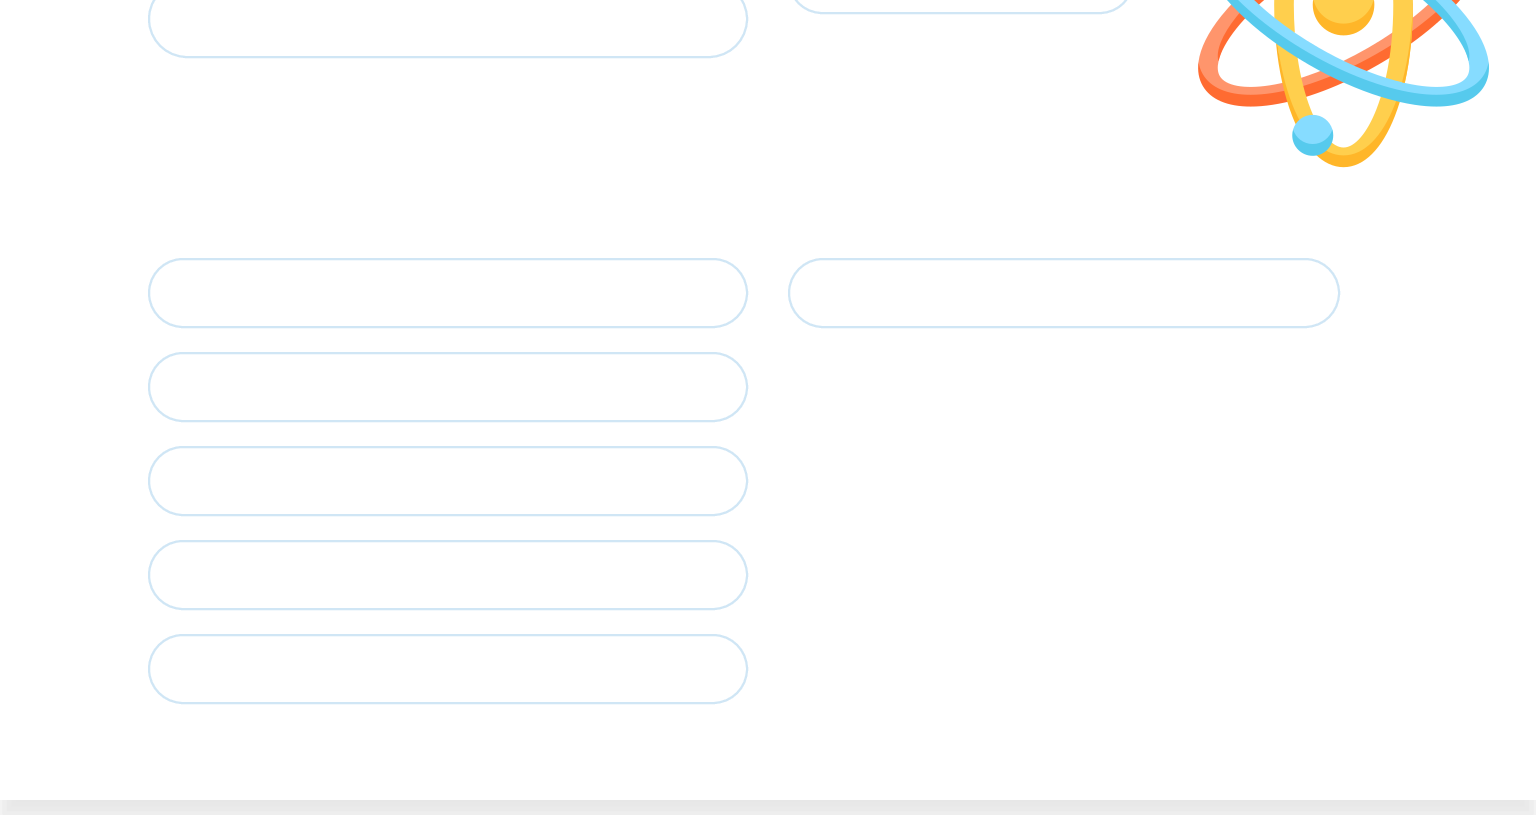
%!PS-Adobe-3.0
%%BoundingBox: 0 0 1536 815
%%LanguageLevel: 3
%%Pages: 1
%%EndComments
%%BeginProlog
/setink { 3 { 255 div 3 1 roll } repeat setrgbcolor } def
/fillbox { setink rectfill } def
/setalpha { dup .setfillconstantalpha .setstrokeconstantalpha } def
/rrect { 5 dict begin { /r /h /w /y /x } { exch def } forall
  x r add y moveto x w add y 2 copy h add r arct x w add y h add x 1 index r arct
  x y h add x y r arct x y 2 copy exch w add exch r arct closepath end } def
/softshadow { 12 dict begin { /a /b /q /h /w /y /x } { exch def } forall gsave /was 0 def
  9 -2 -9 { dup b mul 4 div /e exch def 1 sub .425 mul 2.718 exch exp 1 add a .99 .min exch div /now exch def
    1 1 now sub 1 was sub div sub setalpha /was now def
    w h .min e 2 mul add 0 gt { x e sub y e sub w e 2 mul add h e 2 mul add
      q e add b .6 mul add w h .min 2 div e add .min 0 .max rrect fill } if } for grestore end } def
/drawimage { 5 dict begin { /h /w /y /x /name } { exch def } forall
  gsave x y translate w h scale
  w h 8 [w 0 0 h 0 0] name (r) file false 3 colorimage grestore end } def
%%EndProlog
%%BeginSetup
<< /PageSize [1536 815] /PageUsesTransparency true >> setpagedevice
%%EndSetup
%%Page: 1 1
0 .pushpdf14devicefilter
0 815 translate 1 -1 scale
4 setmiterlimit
0 0 1536 815 255 255 255 fillbox
0 0 0 setink
0 -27 1536 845 0 9 0.09 softshadow
0 0 1536 800 255 255 255 fillbox
208 230 245 setink
2 setlinewidth
149 -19 598 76 38 rrect stroke
789 -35 344 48 33 rrect stroke
(assets/img1.rgb) 1198 0 291 168 drawimage
149 259 598 68 34 rrect stroke
789 259 550 68 34 rrect stroke
149 353 598 68 34 rrect stroke
149 447 598 68 34 rrect stroke
149 541 598 68 34 rrect stroke
149 635 598 68 34 rrect stroke
.poppdf14devicefilter showpage
%%EOF
